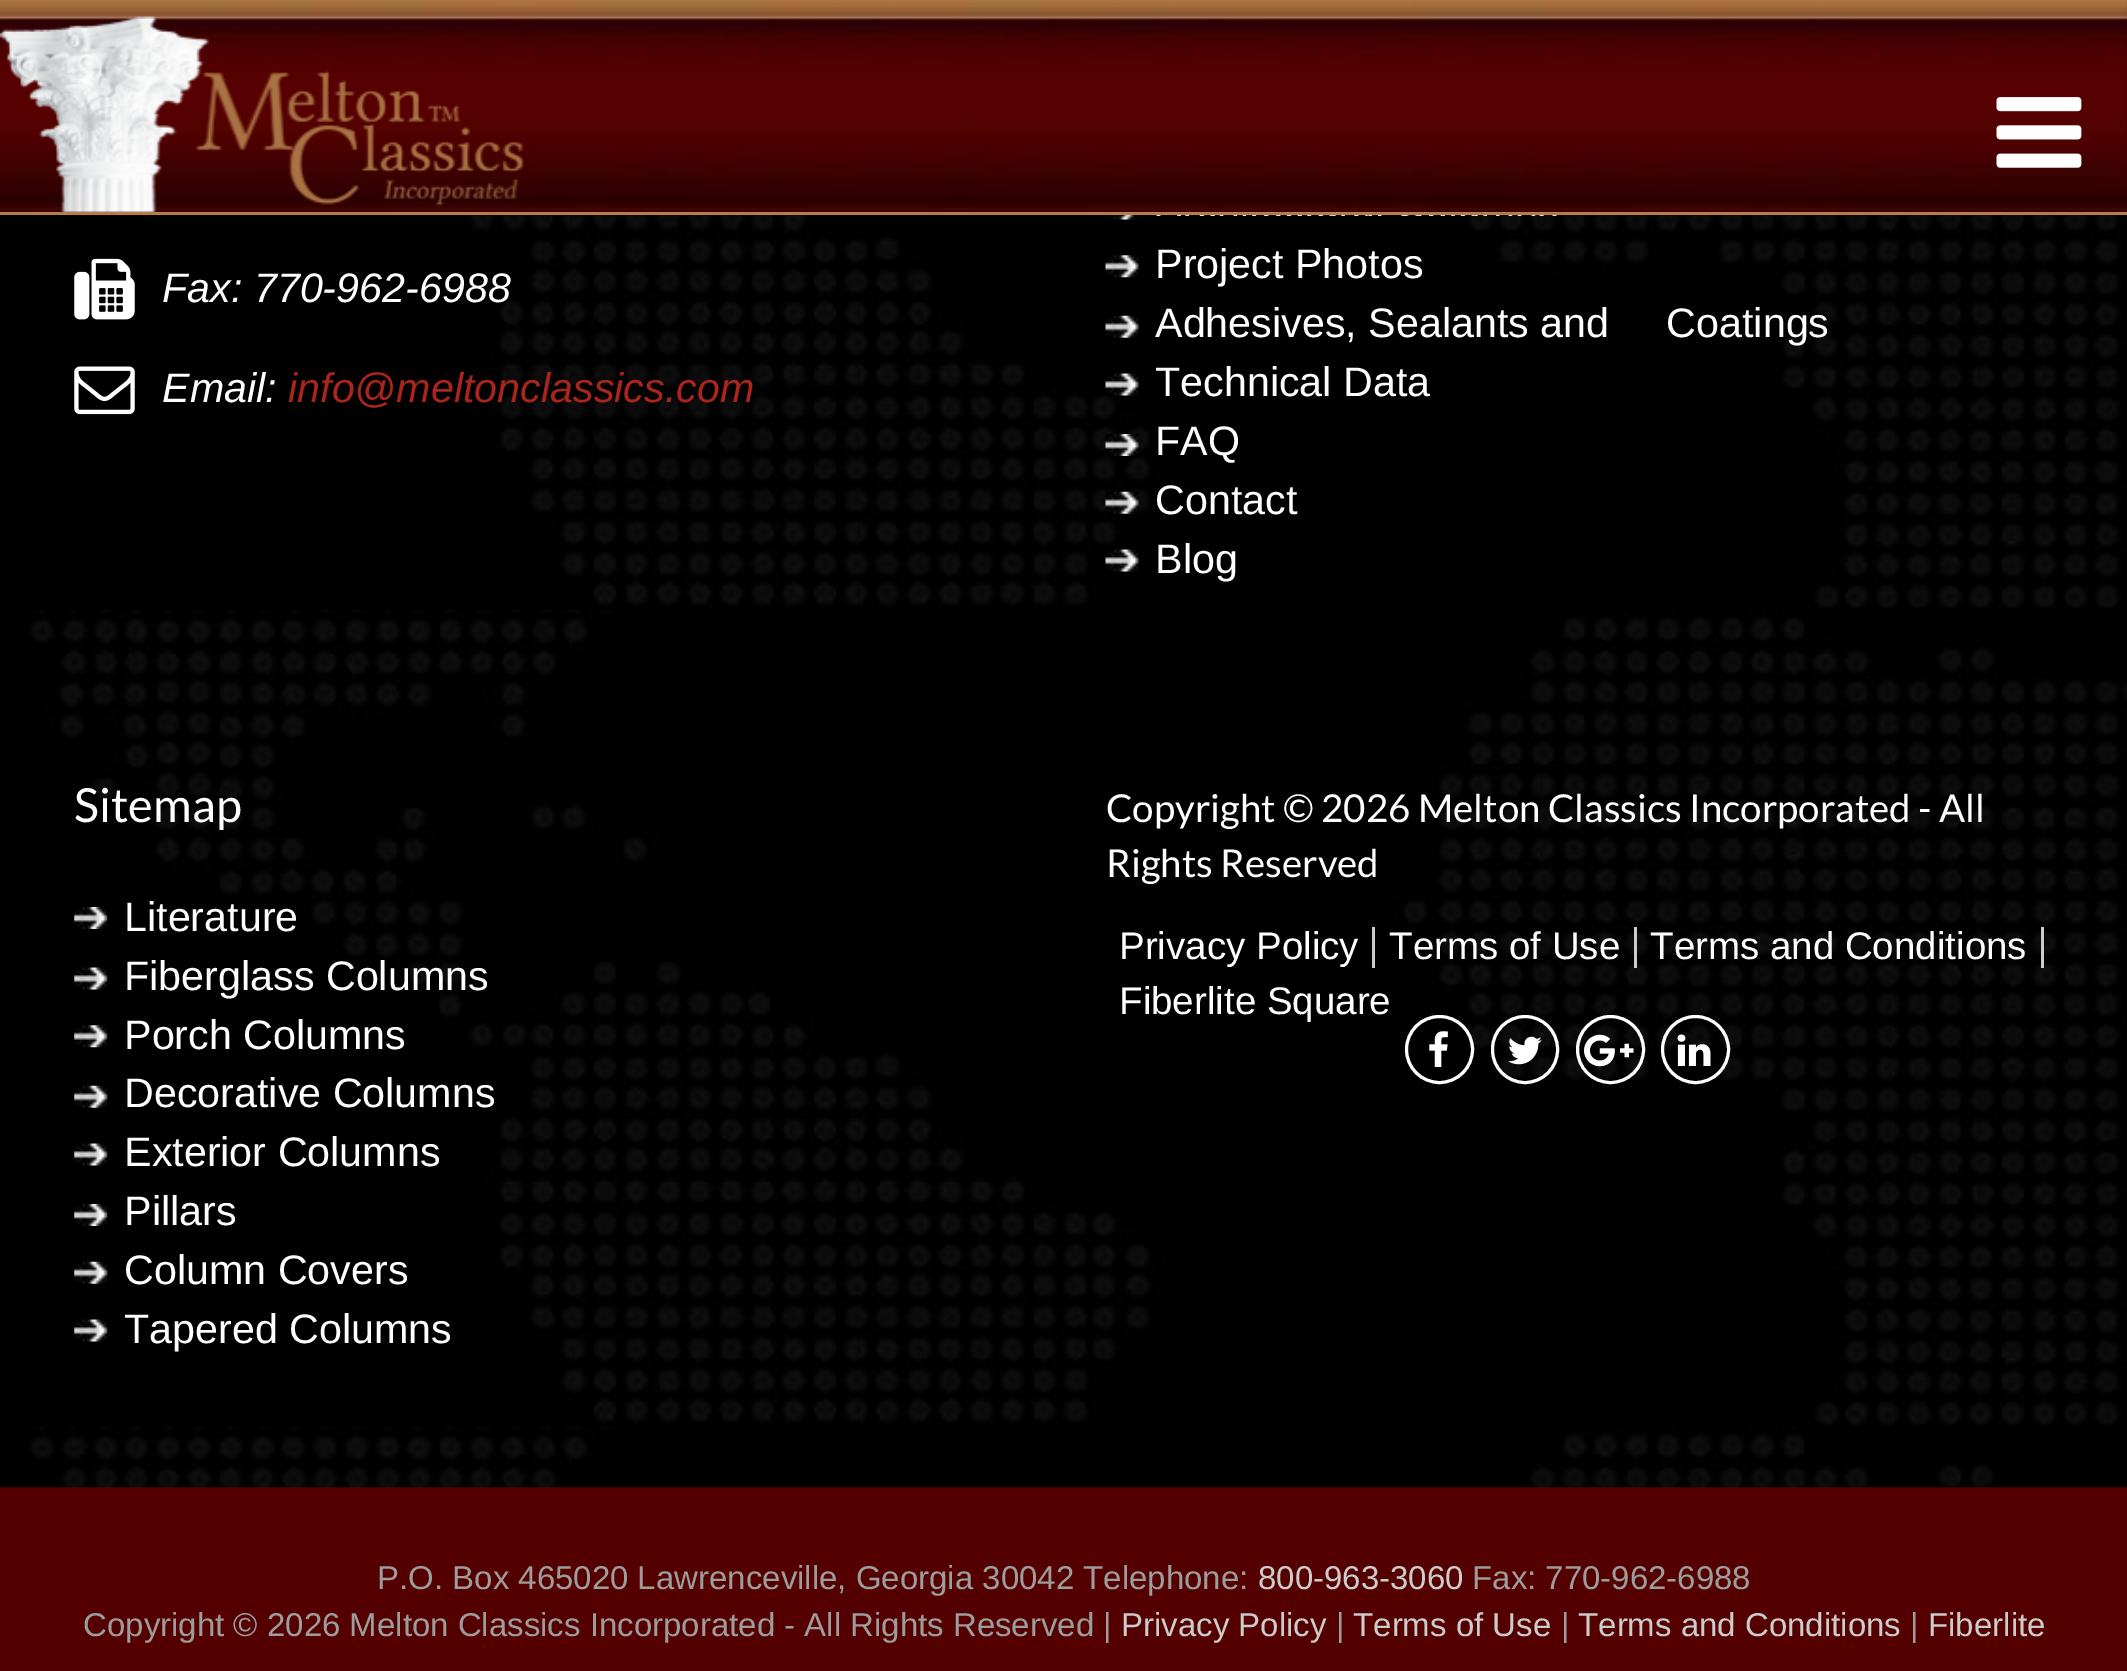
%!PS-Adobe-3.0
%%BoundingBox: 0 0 2127 1671
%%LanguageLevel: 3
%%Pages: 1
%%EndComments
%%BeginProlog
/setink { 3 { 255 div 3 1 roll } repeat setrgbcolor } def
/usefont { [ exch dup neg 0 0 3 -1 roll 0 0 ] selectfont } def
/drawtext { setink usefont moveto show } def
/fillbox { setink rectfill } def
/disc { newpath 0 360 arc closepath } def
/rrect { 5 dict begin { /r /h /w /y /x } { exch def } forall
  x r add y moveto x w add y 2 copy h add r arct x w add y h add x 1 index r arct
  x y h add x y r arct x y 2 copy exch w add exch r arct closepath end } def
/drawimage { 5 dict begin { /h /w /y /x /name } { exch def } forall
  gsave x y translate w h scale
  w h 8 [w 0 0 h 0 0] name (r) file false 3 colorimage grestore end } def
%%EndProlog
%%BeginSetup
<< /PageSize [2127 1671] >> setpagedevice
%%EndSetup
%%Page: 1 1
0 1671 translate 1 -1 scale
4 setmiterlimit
0 0 2127 1671 84 0 0 fillbox
(assets/img4.rgb) 0 0 2127 1488 drawimage
(assets/img7.rgb) 1105 215 34 5 drawimage
(assets/img1.rgb) 0 0 2127 216 drawimage
0 212 2127 3 182 124 74 fillbox
(assets/img2.rgb) 0 16 524 196 drawimage
(assets/img3.rgb) 1996 97 86 71 drawimage
(assets/img5.rgb) 74 258 61 62 drawimage
(Fax: 770-962-6988) 162 302 /LiberationSans-Italic 41.25 255 255 255 drawtext
(assets/img6.rgb) 74 366 61 49 drawimage
(Email:) 162 402 /LiberationSans-Italic 41.25 255 255 255 drawtext
(info@meltonclassics.com) 288 402 /LiberationSans-Italic 41.25 171 37 28 drawtext
(assets/img8.rgb) 1105 255 34 23 drawimage
(Project Photos) 1155 278 /LiberationSans-Regular 41.25 255 255 255 drawtext
(assets/img9.rgb) 1105 315 34 23 drawimage
(Adhesives, Sealants and     Coatings) 1155 337 /LiberationSans-Regular 41.25 255 255 255 drawtext
(assets/img10.rgb) 1105 373 34 23 drawimage
(Technical Data) 1155 396 /LiberationSans-Regular 41.25 255 255 255 drawtext
(assets/img11.rgb) 1105 434 34 22 drawimage
(FAQ) 1155 455 /LiberationSans-Regular 41.25 255 255 255 drawtext
(assets/img12.rgb) 1105 491 34 23 drawimage
(Contact) 1155 514 /LiberationSans-Regular 41.25 255 255 255 drawtext
(assets/img13.rgb) 1105 549 34 23 drawimage
(Blog) 1155 573 /LiberationSans-Regular 41.25 255 255 255 drawtext
(Sitemap) 74 822 /Lato-Regular 47 255 255 255 drawtext
(assets/img14.rgb) 74 907 34 22 drawimage
(Literature) 124 931 /LiberationSans-Regular 41.25 255 255 255 drawtext
(assets/img15.rgb) 74 967 34 23 drawimage
(Fiberglass Columns) 124 990 /LiberationSans-Regular 41.25 255 255 255 drawtext
(assets/img16.rgb) 74 1025 34 23 drawimage
(Porch Columns) 124 1049 /LiberationSans-Regular 41.25 255 255 255 drawtext
(assets/img17.rgb) 74 1085 34 23 drawimage
(Decorative Columns) 124 1107 /LiberationSans-Regular 41.25 255 255 255 drawtext
(assets/img15.rgb) 74 1143 34 23 drawimage
(Exterior Columns) 124 1166 /LiberationSans-Regular 41.25 255 255 255 drawtext
(assets/img14.rgb) 74 1204 34 22 drawimage
(Pillars) 124 1225 /LiberationSans-Regular 41.25 255 255 255 drawtext
(assets/img17.rgb) 74 1261 34 23 drawimage
(Column Covers) 124 1284 /LiberationSans-Regular 41.25 255 255 255 drawtext
(assets/img15.rgb) 74 1319 34 23 drawimage
(Tapered Columns) 124 1343 /LiberationSans-Regular 41.25 255 255 255 drawtext
(Copyright © 2026 Melton Classics Incorporated - All) 1106 822 /Lato-Regular 38.5 255 255 255 drawtext
(Rights Reserved) 1106 877 /Lato-Regular 38.5 255 255 255 drawtext
1372 927 3 41 204 204 204 fillbox
(Privacy Policy) 1119 959 /LiberationSans-Regular 38.5 255 255 255 drawtext
1634 927 3 41 204 204 204 fillbox
(Terms of Use) 1389 959 /LiberationSans-Regular 38.5 255 255 255 drawtext
2041 927 3 41 204 204 204 fillbox
(Terms and Conditions) 1650 959 /LiberationSans-Regular 38.5 255 255 255 drawtext
(Fiberlite Square) 1119 1014 /LiberationSans-Regular 38.5 255 255 255 drawtext
3 setlinewidth
1439.5 1049.5 33 disc stroke
(assets/img18.rgb) 1429 1031 19 36 drawimage
1492.5 1016.5 65 66 32.5 rrect stroke
(assets/img19.rgb) 1508 1036 34 29 drawimage
1610.5 1049.5 33 disc stroke
(assets/img20.rgb) 1584 1034 50 33 drawimage
1695.5 1049.5 33 disc stroke
(assets/img21.rgb) 1677 1034 34 32 drawimage
(P.O. Box 465020 Lawrenceville, Georgia 30042 Telephone:) 377 1589 /LiberationSans-Regular 33 157 157 157 drawtext
(800-963-3060) 1258 1589 /LiberationSans-Regular 33 204 204 204 drawtext
(Fax: 770-962-6988) 1472 1589 /LiberationSans-Regular 33 157 157 157 drawtext
(Copyright © 2026 Melton Classics Incorporated - All Rights Reserved |) 83 1636 /LiberationSans-Regular 33 157 157 157 drawtext
(Privacy Policy) 1121 1636 /LiberationSans-Regular 33 204 204 204 drawtext
(|) 1336 1636 /LiberationSans-Regular 33 157 157 157 drawtext
(Terms of Use) 1353 1636 /LiberationSans-Regular 33 204 204 204 drawtext
(|) 1561 1636 /LiberationSans-Regular 33 157 157 157 drawtext
(Terms and Conditions) 1578 1636 /LiberationSans-Regular 33 204 204 204 drawtext
(|) 1910 1636 /LiberationSans-Regular 33 157 157 157 drawtext
(Fiberlite) 1928 1636 /LiberationSans-Regular 33 204 204 204 drawtext
showpage
%%EOF
